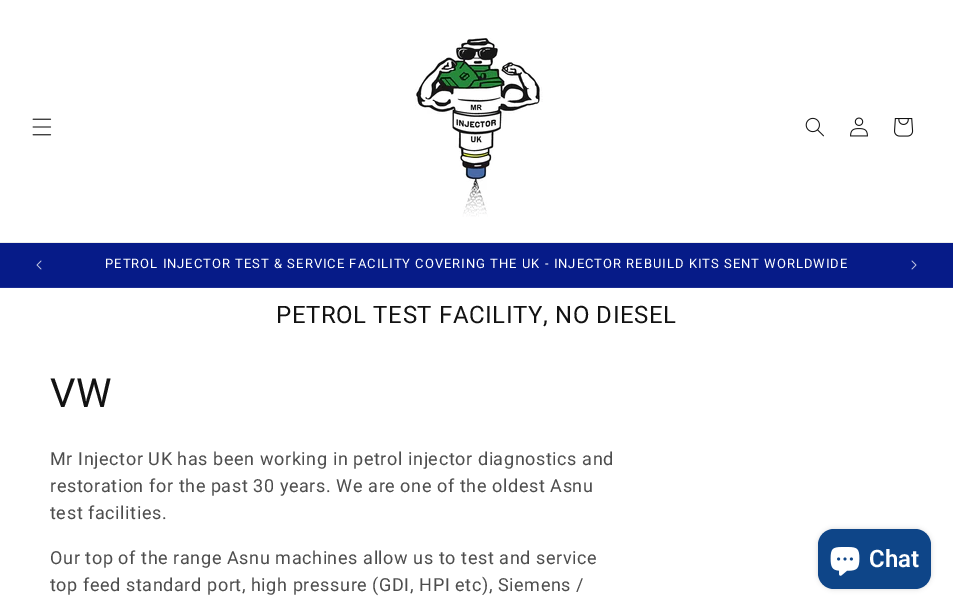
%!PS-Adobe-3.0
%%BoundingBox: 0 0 953 610
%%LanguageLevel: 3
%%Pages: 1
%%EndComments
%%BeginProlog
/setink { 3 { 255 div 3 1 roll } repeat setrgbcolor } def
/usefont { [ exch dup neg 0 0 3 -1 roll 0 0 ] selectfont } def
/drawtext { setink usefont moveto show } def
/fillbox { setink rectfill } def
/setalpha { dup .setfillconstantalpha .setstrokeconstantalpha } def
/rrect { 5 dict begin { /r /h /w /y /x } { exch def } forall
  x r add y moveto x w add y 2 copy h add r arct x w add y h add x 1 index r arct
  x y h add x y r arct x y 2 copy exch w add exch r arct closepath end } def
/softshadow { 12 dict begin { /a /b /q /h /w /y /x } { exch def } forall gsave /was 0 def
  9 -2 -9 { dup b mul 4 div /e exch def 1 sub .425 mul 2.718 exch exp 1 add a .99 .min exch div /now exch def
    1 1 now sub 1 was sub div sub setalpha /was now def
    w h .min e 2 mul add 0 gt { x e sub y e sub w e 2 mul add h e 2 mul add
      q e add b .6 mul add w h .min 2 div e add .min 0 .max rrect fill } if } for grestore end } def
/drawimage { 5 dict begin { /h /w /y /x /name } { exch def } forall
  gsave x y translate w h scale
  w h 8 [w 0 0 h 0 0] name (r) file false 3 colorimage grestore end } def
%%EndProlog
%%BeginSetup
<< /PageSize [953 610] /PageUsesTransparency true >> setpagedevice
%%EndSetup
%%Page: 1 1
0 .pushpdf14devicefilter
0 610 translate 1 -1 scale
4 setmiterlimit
0 0 953 610 255 255 255 fillbox
0 242 953 1 236 236 236 fillbox
(assets/img1.rgb) 32 118 20 18 drawimage
(assets/img2.rgb) 415 38 128 179 drawimage
(assets/img3.rgb) 805 117 19 20 drawimage
(assets/img4.rgb) 850 117 18 20 drawimage
(assets/img5.rgb) 894 118 20 19 drawimage
0 243 953 44 6 27 136 fillbox
0 287 953 1 26 45 146 fillbox
(assets/img6.rgb) 36 260 6 10 drawimage
/Roboto-Regular 13 usefont
255 255 255 setink
105 268 moveto 1 0 (PETROL INJECTOR TEST & SERVICE FACILITY COVERING THE UK - INJECTOR REBUILD KITS SENT WORLDWIDE) ashow
(assets/img7.rgb) 911 260 6 10 drawimage
/Roboto-Regular 24 usefont
18 18 18 setink
276 323 moveto 0.6 0 (PETROL TEST FACILITY, NO DIESEL) ashow
/Roboto-Regular 40 usefont
50 407 moveto 0.6 0 (VW) ashow
/Roboto-Regular 18 usefont
77 77 77 setink
50 465 moveto 0.6 0 (Mr Injector UK has been working in petrol injector diagnostics and) ashow
50 492 moveto 0.6 0 (restoration for the past 30 years. We are one of the oldest Asnu) ashow
50 519 moveto 0.6 0 (test facilities.) ashow
50 564 moveto 0.6 0 (Our top of the range Asnu machines allow us to test and service) ashow
50 591 moveto 0.6 0 (top feed standard port, high pressure \(GDI, HPI etc\), Siemens /) ashow
0 0 0 setink
818 529 113 60 16 2.5 0.15 softshadow
14 69 136 setink
818 529 113 60 16 rrect fill
(assets/img8.rgb) 830 547 30 29 drawimage
(Chat) 869 567 /Roboto-SemiBold 24 255 255 255 drawtext
.poppdf14devicefilter showpage
%%EOF
